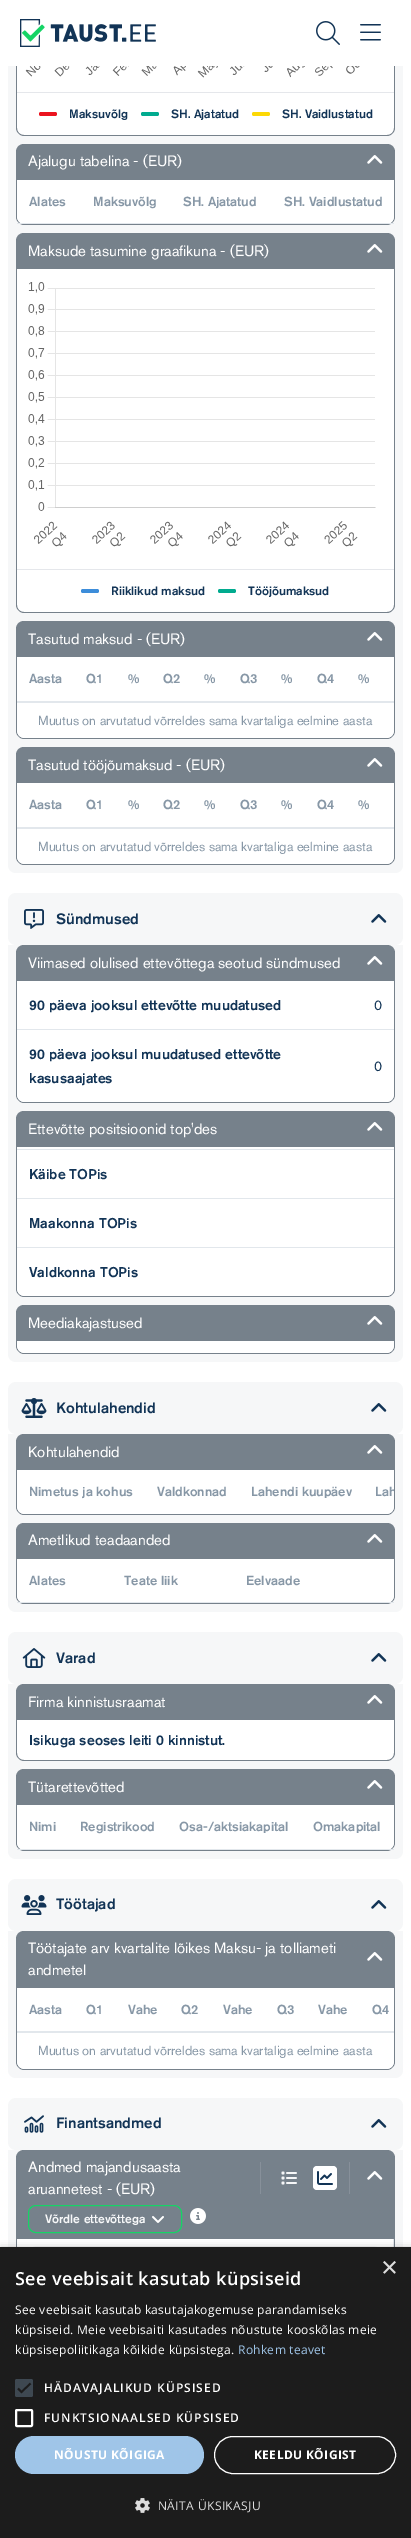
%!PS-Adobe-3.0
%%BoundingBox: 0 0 411 2538
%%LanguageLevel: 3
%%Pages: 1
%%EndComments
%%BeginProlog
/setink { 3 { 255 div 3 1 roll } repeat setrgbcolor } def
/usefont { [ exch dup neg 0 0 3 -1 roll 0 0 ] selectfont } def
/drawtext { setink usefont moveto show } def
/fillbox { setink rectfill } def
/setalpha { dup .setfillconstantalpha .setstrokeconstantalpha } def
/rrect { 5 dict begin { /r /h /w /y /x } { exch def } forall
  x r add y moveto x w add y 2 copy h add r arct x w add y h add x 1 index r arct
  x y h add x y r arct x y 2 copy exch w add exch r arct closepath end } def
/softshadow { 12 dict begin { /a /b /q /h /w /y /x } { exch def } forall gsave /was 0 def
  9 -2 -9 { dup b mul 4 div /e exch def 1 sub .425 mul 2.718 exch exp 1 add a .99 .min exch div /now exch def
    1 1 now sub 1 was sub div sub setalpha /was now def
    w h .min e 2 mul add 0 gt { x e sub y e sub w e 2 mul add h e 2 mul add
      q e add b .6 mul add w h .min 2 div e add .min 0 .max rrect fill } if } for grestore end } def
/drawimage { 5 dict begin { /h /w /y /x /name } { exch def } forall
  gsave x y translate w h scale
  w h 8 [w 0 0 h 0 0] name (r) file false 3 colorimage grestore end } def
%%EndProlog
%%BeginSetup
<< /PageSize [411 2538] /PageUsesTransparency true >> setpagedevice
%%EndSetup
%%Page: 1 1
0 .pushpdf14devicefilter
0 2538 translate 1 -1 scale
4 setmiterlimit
0 0 411 2538 255 255 255 fillbox
246 247 248 setink
8 -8 moveto 403 -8 lineto 403 865 lineto 403 869.5 399.5 873 395 873 curveto 16 873 lineto 11.5 873 8 869.5 8 865 curveto closepath fill
255 255 255 setink
17 -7 moveto 394 -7 lineto 394 128 lineto 394 132 391 135 387 135 curveto 24 135 lineto 20 135 17 132 17 128 curveto closepath fill
118 129 139 setink
16 -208 moveto 395 -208 lineto 395 128 lineto 395 132 391 136 387 136 curveto 24 136 lineto 20 136 16 132 16 128 curveto closepath 17 -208 moveto 394 -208 lineto 394 128 lineto 394 132 391 135 387 135 curveto 24 135 lineto 20 135 17 132 17 128 curveto closepath eofill
8 0 395 66 255 255 255 fillbox
(assets/img1.rgb) 20 19 136 28 drawimage
(assets/img2.rgb) 316 21 24 24 drawimage
(assets/img3.rgb) 360 24 21 17 drawimage
(assets/img4.rgb) 25 66 335 12 drawimage
17 92 377 1 229 231 235 fillbox
235 20 31 setink
39 112 18 4 2 rrect fill
(Maksuvõlg) 69 118 /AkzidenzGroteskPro-Medium 12 18 52 86 drawtext
1 171 143 setink
141 112 18 4 2 rrect fill
(SH. Ajatatud) 171 118 /AkzidenzGroteskPro-Medium 12 18 52 86 drawtext
252 216 5 setink
252 112 18 4 2 rrect fill
(SH. Vaidlustatud) 282 118 /AkzidenzGroteskPro-Medium 12 18 52 86 drawtext
118 129 139 setink
24 144 moveto 387 144 lineto 391.5 144 395 147.5 395 152 curveto 395 180 lineto 16 180 lineto 16 152 lineto 16 147.5 19.5 144 24 144 curveto closepath fill
(Ajalugu tabelina - \(EUR\)) 28 166 /AkzidenzGroteskPro-Regular 15 255 255 255 drawtext
(assets/img5.rgb) 367 155 16 9 drawimage
17 180 moveto 394 180 lineto 394 217 lineto 394 221 391 224 387 224 curveto 24 224 lineto 20 224 17 221 17 217 curveto closepath fill
118 129 139 setink
16 180 moveto 395 180 lineto 395 217 lineto 395 221 391 225 387 225 curveto 24 225 lineto 20 225 16 221 16 217 curveto closepath 17 180 moveto 394 180 lineto 394 217 lineto 394 221 391 224 387 224 curveto 24 224 lineto 20 224 17 221 17 217 curveto closepath eofill
255 255 255 setink
17 180 moveto 394 180 lineto 394 216 lineto 394 220.5 390.5 224 386 224 curveto 25 224 lineto 20.5 224 17 220.5 17 216 curveto closepath fill
17 223 377 1 226 231 236 fillbox
(Alates) 29 206 /AkzidenzGroteskPro-Medium 13 135 151 166 drawtext
(Maksuvõlg) 93 206 /AkzidenzGroteskPro-Medium 13 135 151 166 drawtext
(SH. Ajatatud) 183 206 /AkzidenzGroteskPro-Medium 13 135 151 166 drawtext
(SH. Vaidlustatud) 284 206 /AkzidenzGroteskPro-Medium 13 135 151 166 drawtext
118 129 139 setink
24 233 moveto 387 233 lineto 391.5 233 395 236.5 395 241 curveto 395 269 lineto 16 269 lineto 16 241 lineto 16 236.5 19.5 233 24 233 curveto closepath fill
(Maksude tasumine graafikuna - \(EUR\)) 28 256 /AkzidenzGroteskPro-Regular 15 255 255 255 drawtext
(assets/img5.rgb) 367 244 16 9 drawimage
17 269 moveto 394 269 lineto 394 605 lineto 394 609 391 612 387 612 curveto 24 612 lineto 20 612 17 609 17 605 curveto closepath fill
118 129 139 setink
16 269 moveto 395 269 lineto 395 605 lineto 395 609 391 613 387 613 curveto 24 613 lineto 20 613 16 609 16 605 curveto closepath 17 269 moveto 394 269 lineto 394 605 lineto 394 609 391 612 387 612 curveto 24 612 lineto 20 612 17 609 17 605 curveto closepath eofill
(assets/img6.rgb) 28 282 348 265 drawimage
17 569 377 1 229 231 235 fillbox
61 141 218 setink
81 589 18 4 2 rrect fill
(Riiklikud maksud) 111 595 /AkzidenzGroteskPro-Medium 12 18 52 86 drawtext
1 171 143 setink
218 589 18 4 2 rrect fill
(Tööjõumaksud) 248 595 /AkzidenzGroteskPro-Medium 12 18 52 86 drawtext
118 129 139 setink
24 621 moveto 387 621 lineto 391.5 621 395 624.5 395 629 curveto 395 657 lineto 16 657 lineto 16 629 lineto 16 624.5 19.5 621 24 621 curveto closepath fill
(Tasutud maksud - \(EUR\)) 28 644 /AkzidenzGroteskPro-Regular 15 255 255 255 drawtext
(assets/img5.rgb) 367 632 16 9 drawimage
17 657 moveto 394 657 lineto 394 731 lineto 394 735 391 738 387 738 curveto 24 738 lineto 20 738 17 735 17 731 curveto closepath fill
118 129 139 setink
16 657 moveto 395 657 lineto 395 731 lineto 395 735 391 739 387 739 curveto 24 739 lineto 20 739 16 735 16 731 curveto closepath 17 657 moveto 394 657 lineto 394 731 lineto 394 735 391 738 387 738 curveto 24 738 lineto 20 738 17 735 17 731 curveto closepath eofill
255 255 255 setink
17 657 moveto 394 657 lineto 394 730 lineto 394 734.5 390.5 738 386 738 curveto 25 738 lineto 20.5 738 17 734.5 17 730 curveto closepath fill
(Aasta) 29 683 /AkzidenzGroteskPro-Medium 13 135 151 166 drawtext
(Q1) 86 683 /AkzidenzGroteskPro-Medium 13 135 151 166 drawtext
(%) 128 683 /AkzidenzGroteskPro-Medium 13 135 151 166 drawtext
(Q2) 163 683 /AkzidenzGroteskPro-Medium 13 135 151 166 drawtext
(%) 204 683 /AkzidenzGroteskPro-Medium 13 135 151 166 drawtext
(Q3) 240 683 /AkzidenzGroteskPro-Medium 13 135 151 166 drawtext
(%) 281 683 /AkzidenzGroteskPro-Medium 13 135 151 166 drawtext
(Q4) 317 683 /AkzidenzGroteskPro-Medium 13 135 151 166 drawtext
(%) 358 683 /AkzidenzGroteskPro-Medium 13 135 151 166 drawtext
17 701 377 2 226 231 236 fillbox
(Muutus on arvutatud võrreldes sama kvartaliga eelmine aasta) 38 725 /AkzidenzGroteskPro-Regular 13 135 151 166 drawtext
118 129 139 setink
24 747 moveto 387 747 lineto 391.5 747 395 750.5 395 755 curveto 395 783 lineto 16 783 lineto 16 755 lineto 16 750.5 19.5 747 24 747 curveto closepath fill
(Tasutud tööjõumaksud - \(EUR\)) 28 770 /AkzidenzGroteskPro-Regular 15 255 255 255 drawtext
(assets/img5.rgb) 367 758 16 9 drawimage
17 783 moveto 394 783 lineto 394 857 lineto 394 861 391 864 387 864 curveto 24 864 lineto 20 864 17 861 17 857 curveto closepath fill
118 129 139 setink
16 783 moveto 395 783 lineto 395 857 lineto 395 861 391 865 387 865 curveto 24 865 lineto 20 865 16 861 16 857 curveto closepath 17 783 moveto 394 783 lineto 394 857 lineto 394 861 391 864 387 864 curveto 24 864 lineto 20 864 17 861 17 857 curveto closepath eofill
255 255 255 setink
17 783 moveto 394 783 lineto 394 856 lineto 394 860.5 390.5 864 386 864 curveto 25 864 lineto 20.5 864 17 860.5 17 856 curveto closepath fill
(Aasta) 29 809 /AkzidenzGroteskPro-Medium 13 135 151 166 drawtext
(Q1) 86 809 /AkzidenzGroteskPro-Medium 13 135 151 166 drawtext
(%) 128 809 /AkzidenzGroteskPro-Medium 13 135 151 166 drawtext
(Q2) 163 809 /AkzidenzGroteskPro-Medium 13 135 151 166 drawtext
(%) 204 809 /AkzidenzGroteskPro-Medium 13 135 151 166 drawtext
(Q3) 240 809 /AkzidenzGroteskPro-Medium 13 135 151 166 drawtext
(%) 281 809 /AkzidenzGroteskPro-Medium 13 135 151 166 drawtext
(Q4) 317 809 /AkzidenzGroteskPro-Medium 13 135 151 166 drawtext
(%) 358 809 /AkzidenzGroteskPro-Medium 13 135 151 166 drawtext
17 827 377 2 226 231 236 fillbox
(Muutus on arvutatud võrreldes sama kvartaliga eelmine aasta) 38 851 /AkzidenzGroteskPro-Regular 13 135 151 166 drawtext
246 247 248 setink
8 893 395 52 8 rrect fill
(assets/img7.rgb) 24 909 20 20 drawimage
(Sündmused) 56 924 /AkzidenzGroteskPro-Medium 15 18 52 86 drawtext
(assets/img8.rgb) 371 914 16 9 drawimage
246 247 248 setink
8 945 moveto 403 945 lineto 403 1354 lineto 403 1358.5 399.5 1362 395 1362 curveto 16 1362 lineto 11.5 1362 8 1358.5 8 1354 curveto closepath fill
118 129 139 setink
24 945 moveto 387 945 lineto 391.5 945 395 948.5 395 953 curveto 395 981 lineto 16 981 lineto 16 953 lineto 16 948.5 19.5 945 24 945 curveto closepath fill
(Viimased olulised ettevõttega seotud sündmused) 28 968 /AkzidenzGroteskPro-Regular 15 255 255 255 drawtext
(assets/img5.rgb) 367 956 16 9 drawimage
17 981 moveto 394 981 lineto 394 1095 lineto 394 1099 391 1102 387 1102 curveto 24 1102 lineto 20 1102 17 1099 17 1095 curveto closepath fill
118 129 139 setink
16 981 moveto 395 981 lineto 395 1095 lineto 395 1099 391 1103 387 1103 curveto 24 1103 lineto 20 1103 16 1099 16 1095 curveto closepath 17 981 moveto 394 981 lineto 394 1095 lineto 394 1099 391 1102 387 1102 curveto 24 1102 lineto 20 1102 17 1099 17 1095 curveto closepath eofill
255 255 255 setink
17 981 moveto 394 981 lineto 394 1094 lineto 394 1098.5 390.5 1102 386 1102 curveto 25 1102 lineto 20.5 1102 17 1098.5 17 1094 curveto closepath fill
17 1029 377 1 226 231 236 fillbox
(90 päeva jooksul ettevõtte muudatused) 29 1010 /AkzidenzGroteskPro-Medium 14 18 52 86 drawtext
(0) 374 1010 /AkzidenzGroteskPro-Regular 14 18 52 86 drawtext
(90 päeva jooksul muudatused ettevõtte) 29 1059 /AkzidenzGroteskPro-Medium 14 18 52 86 drawtext
(kasusaajates) 29 1083 /AkzidenzGroteskPro-Medium 14 18 52 86 drawtext
(0) 374 1071 /AkzidenzGroteskPro-Regular 14 18 52 86 drawtext
118 129 139 setink
24 1111 moveto 387 1111 lineto 391.5 1111 395 1114.5 395 1119 curveto 395 1147 lineto 16 1147 lineto 16 1119 lineto 16 1114.5 19.5 1111 24 1111 curveto closepath fill
(Ettevõtte positsioonid top'des) 28 1134 /AkzidenzGroteskPro-Regular 15 255 255 255 drawtext
(assets/img5.rgb) 367 1122 16 9 drawimage
17 1147 moveto 394 1147 lineto 394 1289 lineto 394 1293 391 1296 387 1296 curveto 24 1296 lineto 20 1296 17 1293 17 1289 curveto closepath fill
118 129 139 setink
16 1147 moveto 395 1147 lineto 395 1289 lineto 395 1293 391 1297 387 1297 curveto 24 1297 lineto 20 1297 16 1293 16 1289 curveto closepath 17 1147 moveto 394 1147 lineto 394 1289 lineto 394 1293 391 1296 387 1296 curveto 24 1296 lineto 20 1296 17 1293 17 1289 curveto closepath eofill
255 255 255 setink
17 1147 moveto 394 1147 lineto 394 1288 lineto 394 1292.5 390.5 1296 386 1296 curveto 25 1296 lineto 20.5 1296 17 1292.5 17 1288 curveto closepath fill
17 1149 377 1 226 231 236 fillbox
17 1198 377 1 226 231 236 fillbox
(Käibe TOPis) 29 1179 /AkzidenzGroteskPro-Medium 14 18 52 86 drawtext
17 1247 377 1 226 231 236 fillbox
(Maakonna TOPis) 29 1228 /AkzidenzGroteskPro-Medium 14 18 52 86 drawtext
(Valdkonna TOPis) 29 1277 /AkzidenzGroteskPro-Medium 14 18 52 86 drawtext
118 129 139 setink
24 1305 moveto 387 1305 lineto 391.5 1305 395 1308.5 395 1313 curveto 395 1341 lineto 16 1341 lineto 16 1313 lineto 16 1308.5 19.5 1305 24 1305 curveto closepath fill
(Meediakajastused) 28 1328 /AkzidenzGroteskPro-Regular 15 255 255 255 drawtext
(assets/img5.rgb) 367 1316 16 9 drawimage
17 1341 moveto 394 1341 lineto 394 1346 lineto 394 1350 391 1353 387 1353 curveto 24 1353 lineto 20 1353 17 1350 17 1346 curveto closepath fill
118 129 139 setink
16 1341 moveto 395 1341 lineto 395 1346 lineto 395 1350 391 1354 387 1354 curveto 24 1354 lineto 20 1354 16 1350 16 1346 curveto closepath 17 1341 moveto 394 1341 lineto 394 1346 lineto 394 1350 391 1353 387 1353 curveto 24 1353 lineto 20 1353 17 1350 17 1346 curveto closepath eofill
255 255 255 setink
17 1341 moveto 394 1341 lineto 394 1345 lineto 394 1349.5 390.5 1353 386 1353 curveto 25 1353 lineto 20.5 1353 17 1349.5 17 1345 curveto closepath fill
246 247 248 setink
8 1382 395 52 8 rrect fill
(assets/img9.rgb) 21 1398 26 20 drawimage
(Kohtulahendid) 56 1413 /AkzidenzGroteskPro-Medium 15 18 52 86 drawtext
(assets/img8.rgb) 371 1403 16 9 drawimage
246 247 248 setink
8 1434 moveto 403 1434 lineto 403 1604 lineto 403 1608.5 399.5 1612 395 1612 curveto 16 1612 lineto 11.5 1612 8 1608.5 8 1604 curveto closepath fill
118 129 139 setink
24 1434 moveto 387 1434 lineto 391.5 1434 395 1437.5 395 1442 curveto 395 1470 lineto 16 1470 lineto 16 1442 lineto 16 1437.5 19.5 1434 24 1434 curveto closepath fill
(Kohtulahendid) 28 1457 /AkzidenzGroteskPro-Regular 15 255 255 255 drawtext
(assets/img5.rgb) 367 1445 16 9 drawimage
17 1470 moveto 394 1470 lineto 394 1507 lineto 394 1511 391 1514 387 1514 curveto 24 1514 lineto 20 1514 17 1511 17 1507 curveto closepath fill
118 129 139 setink
16 1470 moveto 395 1470 lineto 395 1507 lineto 395 1511 391 1515 387 1515 curveto 24 1515 lineto 20 1515 16 1511 16 1507 curveto closepath 17 1470 moveto 394 1470 lineto 394 1507 lineto 394 1511 391 1514 387 1514 curveto 24 1514 lineto 20 1514 17 1511 17 1507 curveto closepath eofill
255 255 255 setink
17 1470 moveto 394 1470 lineto 394 1506 lineto 394 1510.5 390.5 1514 386 1514 curveto 25 1514 lineto 20.5 1514 17 1510.5 17 1506 curveto closepath fill
(Nimetus ja kohus) 29 1496 /AkzidenzGroteskPro-Medium 13 135 151 166 drawtext
(Valdkonnad) 157 1496 /AkzidenzGroteskPro-Medium 13 135 151 166 drawtext
(Lahendi kuupäev) 251 1496 /AkzidenzGroteskPro-Medium 13 135 151 166 drawtext
gsave
17 1470 377 44 rectclip
(Lah) 375 1496 /AkzidenzGroteskPro-Medium 13 135 151 166 drawtext
grestore
118 129 139 setink
24 1523 moveto 387 1523 lineto 391.5 1523 395 1526.5 395 1531 curveto 395 1559 lineto 16 1559 lineto 16 1531 lineto 16 1526.5 19.5 1523 24 1523 curveto closepath fill
(Ametlikud teadaanded) 28 1545 /AkzidenzGroteskPro-Regular 15 255 255 255 drawtext
(assets/img5.rgb) 367 1534 16 9 drawimage
17 1559 moveto 394 1559 lineto 394 1596 lineto 394 1600 391 1603 387 1603 curveto 24 1603 lineto 20 1603 17 1600 17 1596 curveto closepath fill
118 129 139 setink
16 1559 moveto 395 1559 lineto 395 1596 lineto 395 1600 391 1604 387 1604 curveto 24 1604 lineto 20 1604 16 1600 16 1596 curveto closepath 17 1559 moveto 394 1559 lineto 394 1596 lineto 394 1600 391 1603 387 1603 curveto 24 1603 lineto 20 1603 17 1600 17 1596 curveto closepath eofill
255 255 255 setink
17 1559 moveto 394 1559 lineto 394 1595 lineto 394 1599.5 390.5 1603 386 1603 curveto 25 1603 lineto 20.5 1603 17 1599.5 17 1595 curveto closepath fill
17 1602 377 1 226 231 236 fillbox
(Alates) 29 1585 /AkzidenzGroteskPro-Medium 13 135 151 166 drawtext
(Teate liik) 124 1585 /AkzidenzGroteskPro-Medium 13 135 151 166 drawtext
(Eelvaade) 246 1585 /AkzidenzGroteskPro-Medium 13 135 151 166 drawtext
246 247 248 setink
8 1632 395 52 8 rrect fill
(assets/img10.rgb) 22 1648 24 20 drawimage
(Varad) 56 1663 /AkzidenzGroteskPro-Medium 15 18 52 86 drawtext
(assets/img8.rgb) 371 1653 16 9 drawimage
246 247 248 setink
8 1684 moveto 403 1684 lineto 403 1851 lineto 403 1855.5 399.5 1859 395 1859 curveto 16 1859 lineto 11.5 1859 8 1855.5 8 1851 curveto closepath fill
118 129 139 setink
24 1684 moveto 387 1684 lineto 391.5 1684 395 1687.5 395 1692 curveto 395 1720 lineto 16 1720 lineto 16 1692 lineto 16 1687.5 19.5 1684 24 1684 curveto closepath fill
(Firma kinnistusraamat) 28 1707 /AkzidenzGroteskPro-Regular 15 255 255 255 drawtext
(assets/img5.rgb) 367 1695 16 9 drawimage
17 1720 moveto 394 1720 lineto 394 1753 lineto 394 1757 391 1760 387 1760 curveto 24 1760 lineto 20 1760 17 1757 17 1753 curveto closepath fill
118 129 139 setink
16 1720 moveto 395 1720 lineto 395 1753 lineto 395 1757 391 1761 387 1761 curveto 24 1761 lineto 20 1761 16 1757 16 1753 curveto closepath 17 1720 moveto 394 1720 lineto 394 1753 lineto 394 1757 391 1760 387 1760 curveto 24 1760 lineto 20 1760 17 1757 17 1753 curveto closepath eofill
(Isikuga seoses leiti 0 kinnistut.) 29 1745 /AkzidenzGroteskPro-Medium 14 18 52 86 drawtext
118 129 139 setink
24 1769 moveto 387 1769 lineto 391.5 1769 395 1772.5 395 1777 curveto 395 1805 lineto 16 1805 lineto 16 1777 lineto 16 1772.5 19.5 1769 24 1769 curveto closepath fill
(Tütarettevõtted) 28 1792 /AkzidenzGroteskPro-Regular 15 255 255 255 drawtext
(assets/img5.rgb) 367 1780 16 9 drawimage
17 1805 moveto 394 1805 lineto 394 1843 lineto 394 1847 391 1850 387 1850 curveto 24 1850 lineto 20 1850 17 1847 17 1843 curveto closepath fill
118 129 139 setink
16 1805 moveto 395 1805 lineto 395 1843 lineto 395 1847 391 1851 387 1851 curveto 24 1851 lineto 20 1851 16 1847 16 1843 curveto closepath 17 1805 moveto 394 1805 lineto 394 1843 lineto 394 1847 391 1850 387 1850 curveto 24 1850 lineto 20 1850 17 1847 17 1843 curveto closepath eofill
255 255 255 setink
17 1805 moveto 394 1805 lineto 394 1842 lineto 394 1846.5 390.5 1850 386 1850 curveto 25 1850 lineto 20.5 1850 17 1846.5 17 1842 curveto closepath fill
17 1849 377 1 226 231 236 fillbox
(Nimi) 29 1831 /AkzidenzGroteskPro-Medium 13 135 151 166 drawtext
(Registrikood) 80 1831 /AkzidenzGroteskPro-Medium 13 135 151 166 drawtext
(Osa-/aktsiakapital) 179 1831 /AkzidenzGroteskPro-Medium 13 135 151 166 drawtext
(Omakapital) 313 1831 /AkzidenzGroteskPro-Medium 13 135 151 166 drawtext
246 247 248 setink
8 1879 395 52 8 rrect fill
(assets/img11.rgb) 21 1895 26 20 drawimage
(Töötajad) 56 1909 /AkzidenzGroteskPro-Medium 15 18 52 86 drawtext
(assets/img8.rgb) 371 1900 16 9 drawimage
246 247 248 setink
8 1931 moveto 403 1931 lineto 403 2070 lineto 403 2074.5 399.5 2078 395 2078 curveto 16 2078 lineto 11.5 2078 8 2074.5 8 2070 curveto closepath fill
118 129 139 setink
24 1931 moveto 387 1931 lineto 391.5 1931 395 1934.5 395 1939 curveto 395 1988 lineto 16 1988 lineto 16 1939 lineto 16 1934.5 19.5 1931 24 1931 curveto closepath fill
(Töötajate arv kvartalite lõikes Maksu- ja tolliameti) 28 1953 /AkzidenzGroteskPro-Regular 15 255 255 255 drawtext
(andmetel) 28 1975 /AkzidenzGroteskPro-Regular 15 255 255 255 drawtext
(assets/img5.rgb) 367 1952 16 9 drawimage
17 1988 moveto 394 1988 lineto 394 2062 lineto 394 2066 391 2069 387 2069 curveto 24 2069 lineto 20 2069 17 2066 17 2062 curveto closepath fill
118 129 139 setink
16 1988 moveto 395 1988 lineto 395 2062 lineto 395 2066 391 2070 387 2070 curveto 24 2070 lineto 20 2070 16 2066 16 2062 curveto closepath 17 1988 moveto 394 1988 lineto 394 2062 lineto 394 2066 391 2069 387 2069 curveto 24 2069 lineto 20 2069 17 2066 17 2062 curveto closepath eofill
255 255 255 setink
17 1988 moveto 394 1988 lineto 394 2061 lineto 394 2065.5 390.5 2069 386 2069 curveto 25 2069 lineto 20.5 2069 17 2065.5 17 2061 curveto closepath fill
(Aasta) 29 2014 /AkzidenzGroteskPro-Medium 13 135 151 166 drawtext
(Q1) 86 2014 /AkzidenzGroteskPro-Medium 13 135 151 166 drawtext
(Vahe) 128 2014 /AkzidenzGroteskPro-Medium 13 135 151 166 drawtext
(Q2) 181 2014 /AkzidenzGroteskPro-Medium 13 135 151 166 drawtext
(Vahe) 223 2014 /AkzidenzGroteskPro-Medium 13 135 151 166 drawtext
(Q3) 277 2014 /AkzidenzGroteskPro-Medium 13 135 151 166 drawtext
(Vahe) 318 2014 /AkzidenzGroteskPro-Medium 13 135 151 166 drawtext
(Q4) 372 2014 /AkzidenzGroteskPro-Medium 13 135 151 166 drawtext
17 2031 377 2 226 231 236 fillbox
(Muutus on arvutatud võrreldes sama kvartaliga eelmine aasta) 38 2055 /AkzidenzGroteskPro-Regular 13 135 151 166 drawtext
246 247 248 setink
8 2098 395 52 8 rrect fill
(assets/img12.rgb) 24 2115 20 18 drawimage
(Finantsandmed) 56 2128 /AkzidenzGroteskPro-Medium 15 18 52 86 drawtext
(assets/img8.rgb) 371 2119 16 9 drawimage
8 2150 395 97 246 247 248 fillbox
118 129 139 setink
24 2150 moveto 387 2150 lineto 391.5 2150 395 2153.5 395 2158 curveto 395 2239 lineto 16 2239 lineto 16 2158 lineto 16 2153.5 19.5 2150 24 2150 curveto closepath fill
(Andmed majandusaasta) 28 2172 /AkzidenzGroteskPro-Regular 15 255 255 255 drawtext
(aruannetest - \(EUR\)) 28 2194 /AkzidenzGroteskPro-Regular 15 255 255 255 drawtext
349 2162 1 32 135 144 154 fillbox
260 2162 1 32 135 144 154 fillbox
(assets/img13.rgb) 281 2171 16 14 drawimage
255 255 255 setink
313 2166 24 24 4 rrect fill
(assets/img14.rgb) 317 2171 16 14 drawimage
(assets/img5.rgb) 367 2171 16 9 drawimage
21 212 102 setink
28.5 2205.5 153 27 7.5 rrect stroke
(Võrdle ettevõttega) 45 2223 /AkzidenzGroteskPro-Medium 12 246 247 248 drawtext
(assets/img15.rgb) 152 2216 12 7 drawimage
(assets/img16.rgb) 190 2208 16 16 drawimage
17 2239 376 8 255 255 255 fillbox
118 129 139 setink
16 2239 moveto 395 2239 lineto 395 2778 lineto 395 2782 391 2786 387 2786 curveto 24 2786 lineto 20 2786 16 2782 16 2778 curveto closepath 17 2239 moveto 394 2239 lineto 394 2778 lineto 394 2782 391 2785 387 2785 curveto 24 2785 lineto 20 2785 17 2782 17 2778 curveto closepath eofill
393 2239 1 8 226 231 236 fillbox
246 247 248 setink
29 2246 352 32 8 rrect fill
0 0 0 setink
1 2249 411 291 0 4 0.35 softshadow
0 2247 411 291 28 28 28 fillbox
(×) 381 2277 /LiberationSans-Regular 29 221 221 221 drawtext
/OpenSans-SemiBold 18 usefont
255 255 255 setink
15 2285 moveto 0.4 0 (See veebisait kasutab küpsiseid) ashow
/OpenSans-Regular 12 usefont
15 2314 moveto 0.3 0 (See veebisait kasutab kasutajakogemuse parandamiseks) ashow
15 2334 moveto 0.3 0 (küpsiseid. Meie veebisaiti kasutades nõustute kooskõlas meie) ashow
15 2354 moveto 0.3 0 (küpsisepoliitikaga kõikide küpsistega.) ashow
159 197 232 setink
238 2354 moveto 0.3 0 (Rohkem teavet) ashow
62 72 81 setink
15 2379 18 18 2 rrect fill
28 28 28 setink
1.8 setlinewidth
18 2388.5 moveto 21.5 2392 lineto 30.5 2383.5 lineto stroke
/OpenSans-SemiBold 12 usefont
255 255 255 setink
44 2392 moveto 1 0 (HÄDAVAJALIKUD KÜPSISED) ashow
2 setlinewidth
16 2410 16 16 1 rrect stroke
44 2422 moveto 1 0 (FUNKTSIONAALSED KÜPSISED) ashow
159 197 232 setink
15 2436 189 38 19 rrect fill
/OpenSans-Bold 12 usefont
255 255 255 setink
54 2459 moveto 0.4 0 (NÕUSTU KÕIGIGA) ashow
1 setlinewidth
214.5 2436.5 181 37 18.5 rrect stroke
254 2459 moveto 0.4 0 (KEELDU KÕIGIST) ashow
(assets/img17.rgb) 135 2498 15 15 drawimage
/OpenSans-Regular 12 usefont
221 221 221 setink
158 2510 moveto 0.4 0 (NÄITA ÜKSIKASJU) ashow
.poppdf14devicefilter showpage
%%EOF
